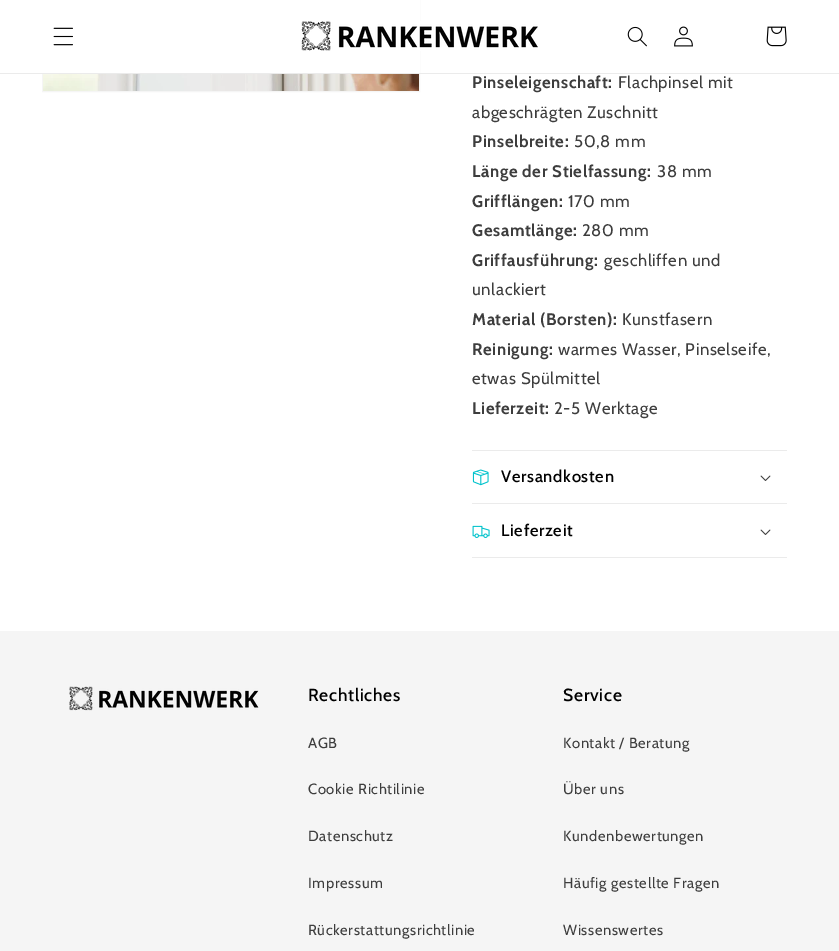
%!PS-Adobe-3.0
%%BoundingBox: 0 0 839 951
%%LanguageLevel: 3
%%Pages: 1
%%EndComments
%%BeginProlog
/setink { 3 { 255 div 3 1 roll } repeat setrgbcolor } def
/usefont { [ exch dup neg 0 0 3 -1 roll 0 0 ] selectfont } def
/fillbox { setink rectfill } def
/drawimage { 5 dict begin { /h /w /y /x /name } { exch def } forall
  gsave x y translate w h scale
  w h 8 [w 0 0 h 0 0] name (r) file false 3 colorimage grestore end } def
%%EndProlog
%%BeginSetup
<< /PageSize [839 951] >> setpagedevice
%%EndSetup
%%Page: 1 1
0 951 translate 1 -1 scale
4 setmiterlimit
0 0 839 951 255 255 255 fillbox
245 245 245 setink
42.5 -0.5 377 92 rectstroke
42 0 378 73 255 255 255 fillbox
0 73 839 1 235 235 235 fillbox
(assets/img1.rgb) 53 27 20 19 drawimage
(assets/img2.rgb) 301 21 237 30 drawimage
(assets/img3.rgb) 627 26 20 21 drawimage
(assets/img4.rgb) 674 26 19 21 drawimage
(assets/img5.rgb) 766 26 21 21 drawimage
(assets/img6.rgb) 43 74 376 17 drawimage
/Cabin-Bold 16.75 usefont
61 61 61 setink
472 88 moveto 0.6 0 (Pinseleigenschaft:) ashow
/Cabin-Regular 16.75 usefont
618 88 moveto 0.6 0 (Flachpinsel mit) ashow
472 118 moveto 0.6 0 (abgeschrägten Zuschnitt) ashow
/Cabin-Bold 16.75 usefont
472 147 moveto 0.6 0 (Pinselbreite:) ashow
/Cabin-Regular 16.75 usefont
574 147 moveto 0.6 0 (50,8 mm) ashow
/Cabin-Bold 16.75 usefont
472 177 moveto 0.6 0 (Länge der Stielfassung:) ashow
/Cabin-Regular 16.75 usefont
657 177 moveto 0.6 0 (38 mm) ashow
/Cabin-Bold 16.75 usefont
472 207 moveto 0.6 0 (Grifflängen:) ashow
/Cabin-Regular 16.75 usefont
568 207 moveto 0.6 0 (170 mm) ashow
/Cabin-Bold 16.75 usefont
472 236 moveto 0.6 0 (Gesamtlänge:) ashow
/Cabin-Regular 16.75 usefont
582 236 moveto 0.6 0 (280 mm) ashow
/Cabin-Bold 16.75 usefont
472 266 moveto 0.6 0 (Griffausführung:) ashow
/Cabin-Regular 16.75 usefont
604 266 moveto 0.6 0 (geschliffen und) ashow
472 295 moveto 0.6 0 (unlackiert) ashow
/Cabin-Bold 16.75 usefont
472 325 moveto 0.6 0 (Material \(Borsten\):) ashow
/Cabin-Regular 16.75 usefont
622 325 moveto 0.6 0 (Kunstfasern) ashow
/Cabin-Bold 16.75 usefont
472 355 moveto 0.6 0 (Reinigung:) ashow
/Cabin-Regular 16.75 usefont
558 355 moveto 0.6 0 (warmes Wasser, Pinselseife,) ashow
472 384 moveto 0.6 0 (etwas Spülmittel) ashow
/Cabin-Bold 16.75 usefont
472 414 moveto 0.6 0 (Lieferzeit:) ashow
/Cabin-Regular 16.75 usefont
554 414 moveto 0.6 0 (2-5 Werktage) ashow
472 450 315 1 235 235 235 fillbox
472 503 315 1 235 235 235 fillbox
(assets/img7.rgb) 472 469 17 17 drawimage
/Cabin-Medium 16.5 usefont
0 0 0 setink
501 482 moveto 0.7 0 (Versandkosten) ashow
(assets/img8.rgb) 760 475 11 6 drawimage
472 557 315 1 235 235 235 fillbox
(assets/img9.rgb) 472 525 18 13 drawimage
0 0 0 setink
501 536 moveto 0.7 0 (Lieferzeit) ashow
(assets/img8.rgb) 760 529 11 6 drawimage
0 631 839 320 245 245 245 fillbox
(assets/img10.rgb) 69 686 190 25 drawimage
/Cabin-Medium 17.5 usefont
0 0 0 setink
308 701 moveto 0.7 0 (Rechtliches) ashow
/Cabin-Regular 14.75 usefont
61 61 61 setink
308 748 moveto 0.6 0 (AGB) ashow
308 794 moveto 0.6 0 (Cookie Richtilinie) ashow
308 841 moveto 0.6 0 (Datenschutz) ashow
308 888 moveto 0.6 0 (Impressum) ashow
308 935 moveto 0.6 0 (Rückerstattungsrichtlinie) ashow
/Cabin-Medium 17.5 usefont
0 0 0 setink
563 701 moveto 0.7 0 (Service) ashow
/Cabin-Regular 14.75 usefont
61 61 61 setink
563 748 moveto 0.6 0 (Kontakt / Beratung) ashow
563 794 moveto 0.6 0 (Über uns) ashow
563 841 moveto 0.6 0 (Kundenbewertungen) ashow
563 888 moveto 0.6 0 (Häufig gestellte Fragen) ashow
563 935 moveto 0.6 0 (Wissenswertes) ashow
showpage
%%EOF
